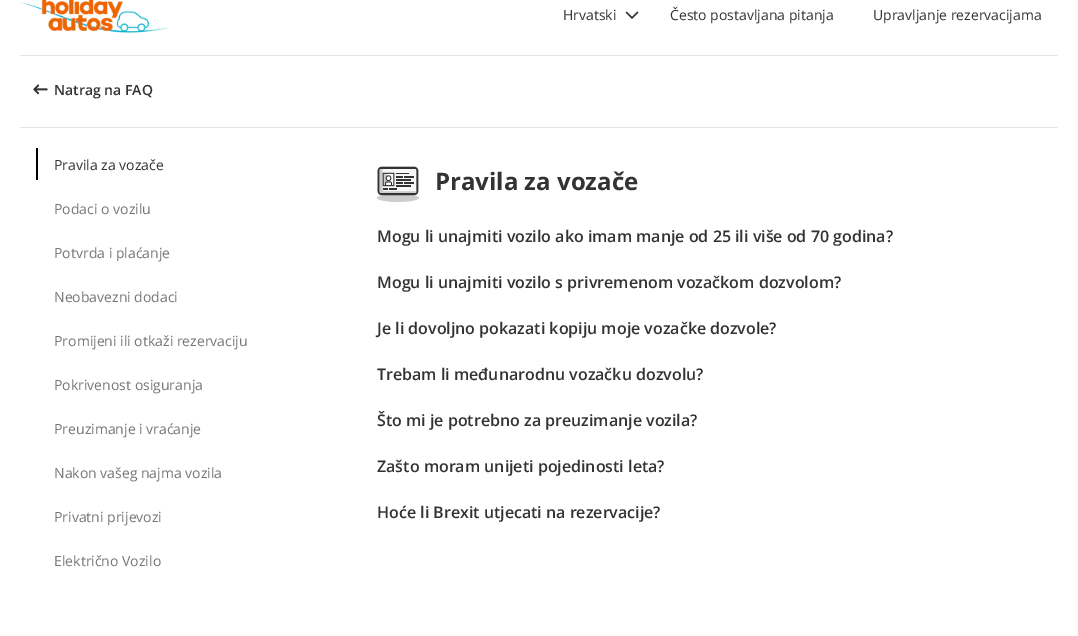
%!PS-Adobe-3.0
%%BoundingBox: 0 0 1078 636
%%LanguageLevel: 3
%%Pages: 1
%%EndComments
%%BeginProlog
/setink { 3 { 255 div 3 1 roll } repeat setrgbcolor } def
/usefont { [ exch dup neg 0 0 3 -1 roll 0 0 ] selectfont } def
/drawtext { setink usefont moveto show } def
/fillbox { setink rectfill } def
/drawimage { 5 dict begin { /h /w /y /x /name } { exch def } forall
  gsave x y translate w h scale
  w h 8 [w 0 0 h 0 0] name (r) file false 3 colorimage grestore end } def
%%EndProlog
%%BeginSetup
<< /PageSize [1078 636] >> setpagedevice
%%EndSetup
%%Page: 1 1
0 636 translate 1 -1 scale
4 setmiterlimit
0 0 1078 636 255 255 255 fillbox
(assets/img1.rgb) 20 0 149 33 drawimage
(Hrvatski) 563 20 /OpenSans-Regular 14 51 51 51 drawtext
(assets/img2.rgb) 625 11 14 8 drawimage
(Često postavljana pitanja) 670 20 /OpenSans-Regular 14 51 51 51 drawtext
(Upravljanje rezervacijama) 873 20 /OpenSans-Regular 14 51 51 51 drawtext
20 55 1038 1 229 229 229 fillbox
(assets/img3.rgb) 33 84 15 11 drawimage
(Natrag na FAQ) 54 95 /OpenSans-SemiBold 14 51 51 51 drawtext
20 127 1038 1 229 229 229 fillbox
36 148 2 32 0 0 0 fillbox
(Pravila za vozače) 54 170 /OpenSans-Regular 14 51 51 51 drawtext
(Podaci o vozilu) 54 214 /OpenSans-Regular 14 118 118 118 drawtext
(Potvrda i plaćanje) 54 258 /OpenSans-Regular 14 118 118 118 drawtext
(Neobavezni dodaci) 54 302 /OpenSans-Regular 14 118 118 118 drawtext
(Promijeni ili otkaži rezervaciju) 54 346 /OpenSans-Regular 14 118 118 118 drawtext
(Pokrivenost osiguranja) 54 390 /OpenSans-Regular 14 118 118 118 drawtext
(Preuzimanje i vraćanje) 54 434 /OpenSans-Regular 14 118 118 118 drawtext
(Nakon vašeg najma vozila) 54 478 /OpenSans-Regular 14 118 118 118 drawtext
(Privatni prijevozi) 54 522 /OpenSans-Regular 14 118 118 118 drawtext
(Električno Vozilo) 54 566 /OpenSans-Regular 14 118 118 118 drawtext
(assets/img4.rgb) 377 166 42 36 drawimage
(Pravila za vozače) 435 190 /OpenSans-Bold 24 51 51 51 drawtext
(Mogu li unajmiti vozilo ako imam manje od 25 ili više od 70 godina?) 377 242 /OpenSans-SemiBold 16 51 51 51 drawtext
(Mogu li unajmiti vozilo s privremenom vozačkom dozvolom?) 377 288 /OpenSans-SemiBold 16 51 51 51 drawtext
(Je li dovoljno pokazati kopiju moje vozačke dozvole?) 377 334 /OpenSans-SemiBold 16 51 51 51 drawtext
(Trebam li međunarodnu vozačku dozvolu?) 377 380 /OpenSans-SemiBold 16 51 51 51 drawtext
(Što mi je potrebno za preuzimanje vozila?) 377 426 /OpenSans-SemiBold 16 51 51 51 drawtext
(Zašto moram unijeti pojedinosti leta?) 377 472 /OpenSans-SemiBold 16 51 51 51 drawtext
(Hoće li Brexit utjecati na rezervacije?) 377 518 /OpenSans-SemiBold 16 51 51 51 drawtext
showpage
%%EOF
